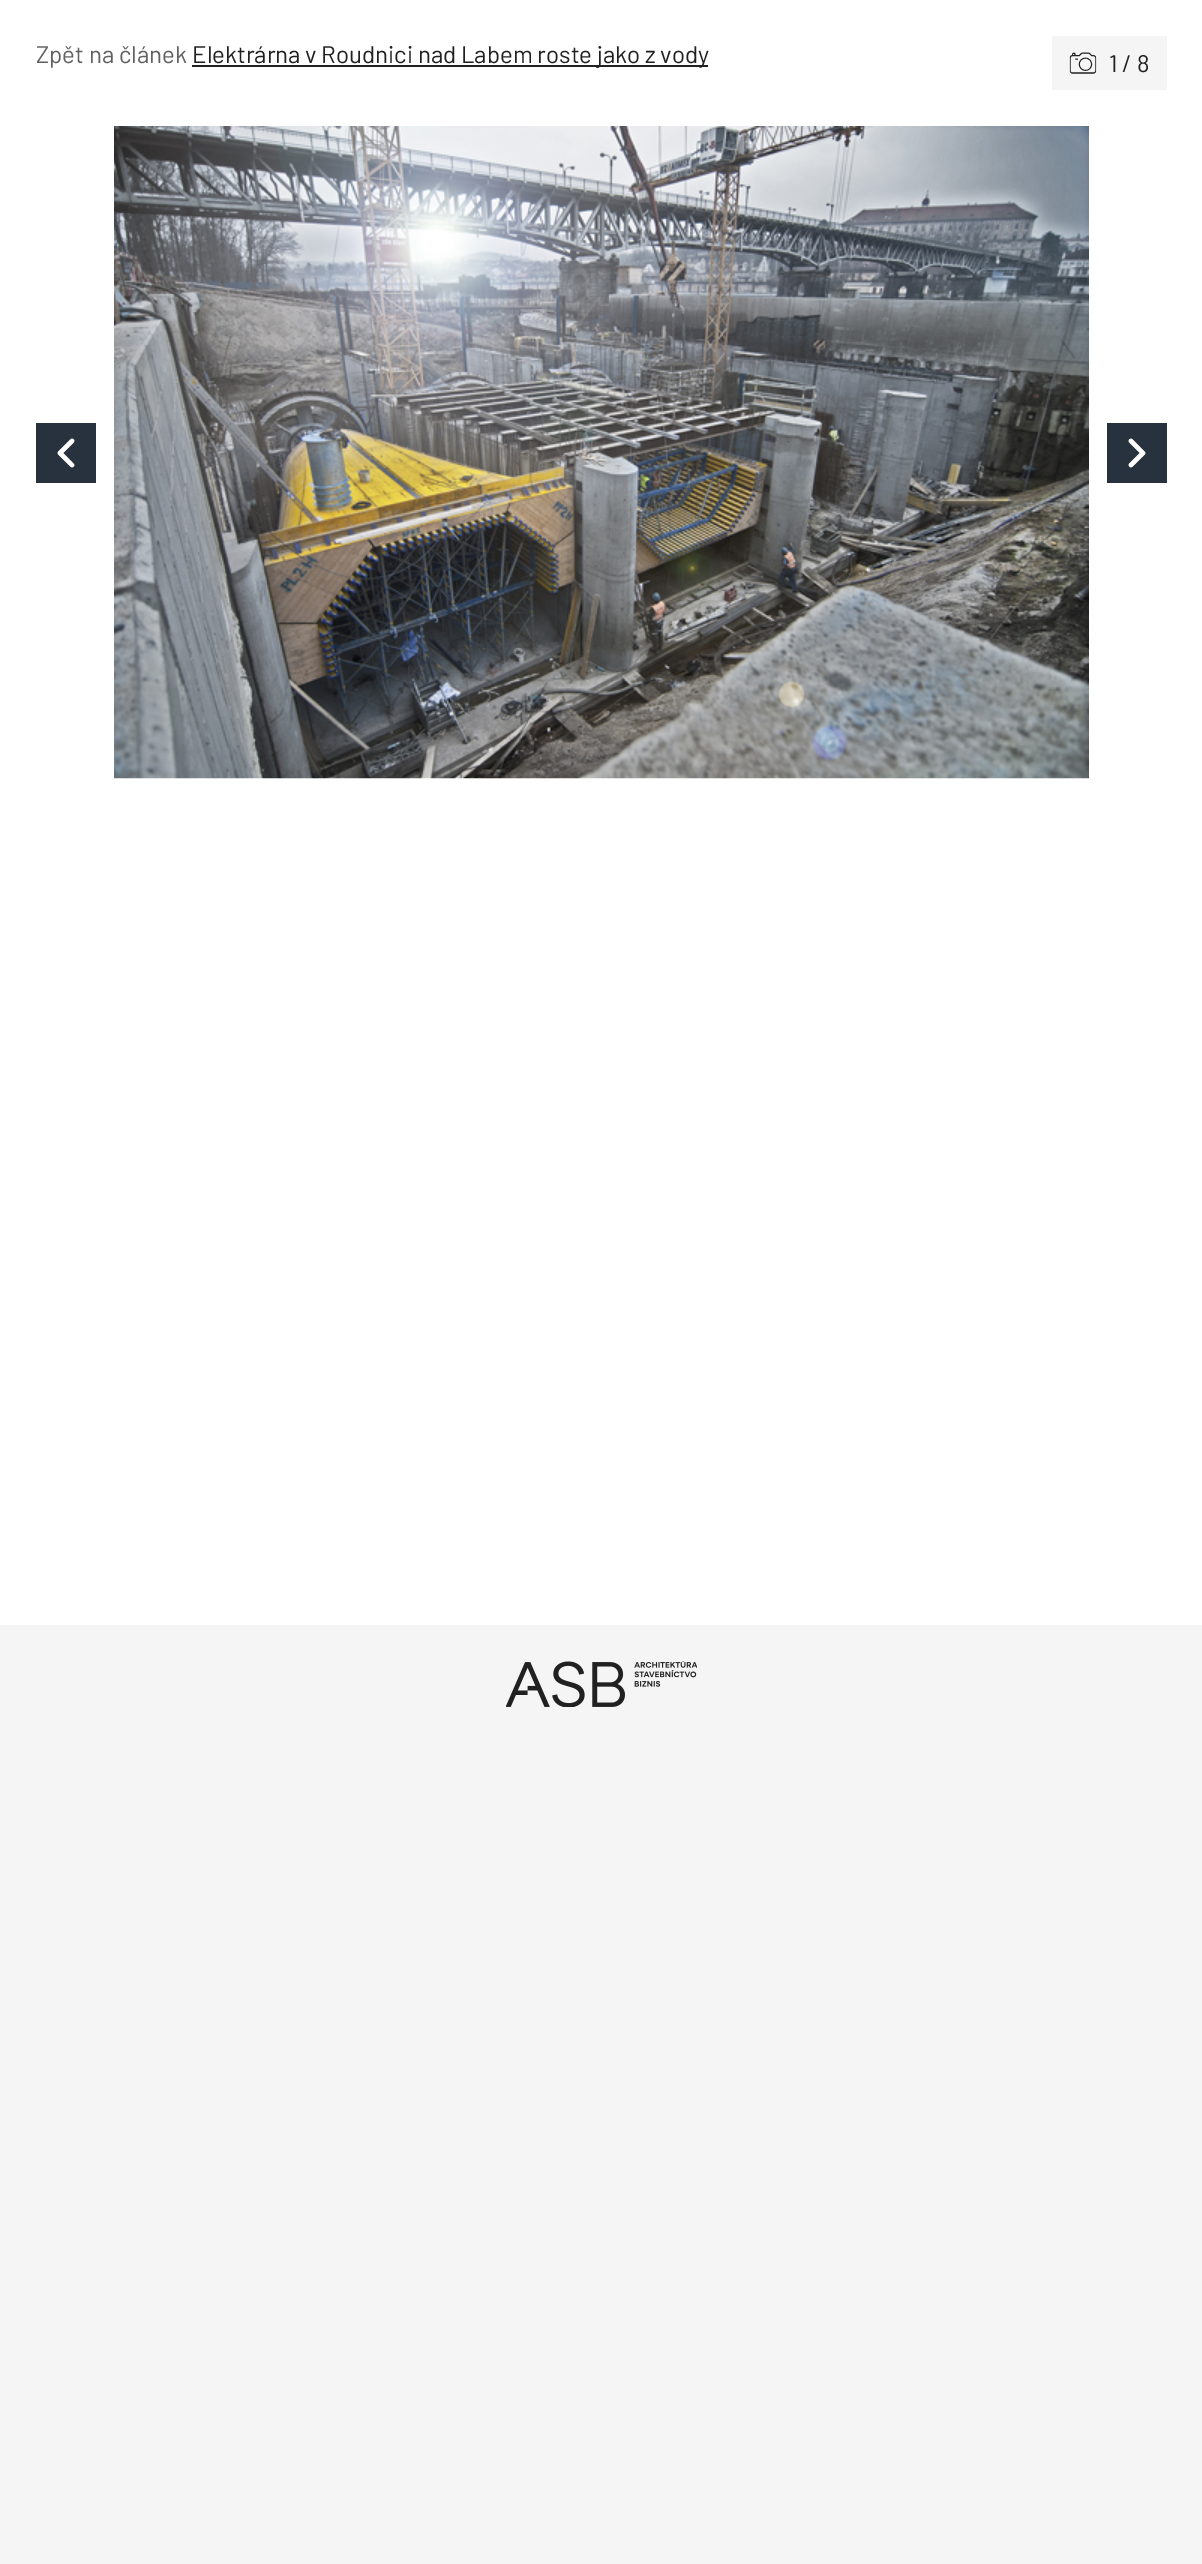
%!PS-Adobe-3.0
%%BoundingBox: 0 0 1202 2564
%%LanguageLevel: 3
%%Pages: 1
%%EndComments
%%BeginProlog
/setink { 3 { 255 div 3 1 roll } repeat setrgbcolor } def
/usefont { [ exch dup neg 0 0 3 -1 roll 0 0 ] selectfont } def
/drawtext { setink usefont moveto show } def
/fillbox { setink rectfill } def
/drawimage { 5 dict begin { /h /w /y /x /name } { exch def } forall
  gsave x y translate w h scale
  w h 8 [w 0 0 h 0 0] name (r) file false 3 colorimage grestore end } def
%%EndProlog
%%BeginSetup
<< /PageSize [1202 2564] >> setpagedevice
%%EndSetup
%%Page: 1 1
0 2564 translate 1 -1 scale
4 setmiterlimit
0 0 1202 2564 255 255 255 fillbox
(Zpět na článek) 36 63 /Barlow-Regular 24 97 97 97 drawtext
192 65 516 2 33 33 33 fillbox
(Elektrárna v Roudnici nad Labem roste jako z vody) 192 63 /Barlow-Regular 24 33 33 33 drawtext
1052 36 115 54 245 245 245 fillbox
(assets/img1.rgb) 1069 52 28 22 drawimage
(1 / 8) 1109 72 /Barlow-Regular 24 33 33 33 drawtext
36 423 60 60 40 49 62 fillbox
(assets/img2.rgb) 57 438 18 30 drawimage
(assets/img3.rgb) 114 126 975 653 drawimage
1107 423 60 60 40 49 62 fillbox
(assets/img4.rgb) 1128 438 18 30 drawimage
0 1625 1202 939 245 245 245 fillbox
(assets/img5.rgb) 506 1661 191 46 drawimage
showpage
%%EOF
